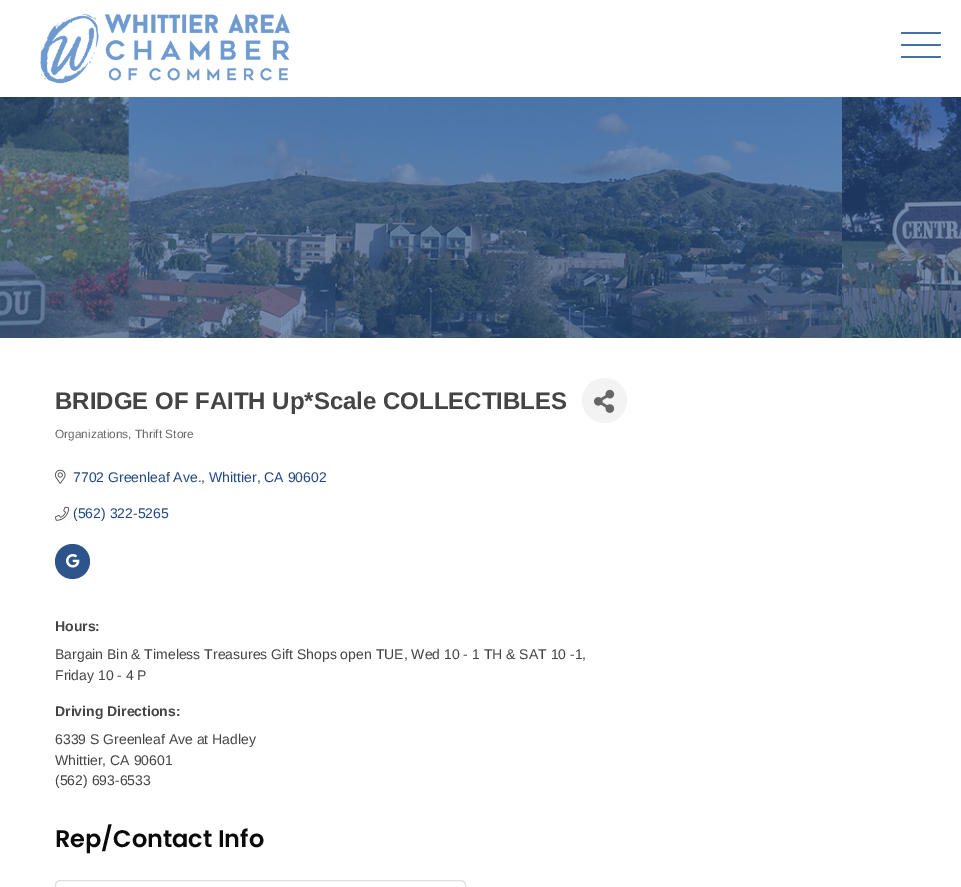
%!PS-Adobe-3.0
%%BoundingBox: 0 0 961 887
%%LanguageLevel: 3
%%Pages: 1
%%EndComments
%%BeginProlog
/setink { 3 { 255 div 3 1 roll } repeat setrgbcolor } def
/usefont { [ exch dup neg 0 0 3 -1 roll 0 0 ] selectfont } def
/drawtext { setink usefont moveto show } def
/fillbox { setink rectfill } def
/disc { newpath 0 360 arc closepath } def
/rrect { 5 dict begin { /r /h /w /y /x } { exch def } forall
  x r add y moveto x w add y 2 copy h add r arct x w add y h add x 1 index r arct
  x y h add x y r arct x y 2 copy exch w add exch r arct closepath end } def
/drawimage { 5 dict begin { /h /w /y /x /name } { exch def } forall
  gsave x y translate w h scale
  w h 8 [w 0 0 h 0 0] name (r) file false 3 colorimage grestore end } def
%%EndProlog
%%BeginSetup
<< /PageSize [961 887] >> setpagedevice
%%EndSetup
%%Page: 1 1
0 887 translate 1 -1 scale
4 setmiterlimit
0 0 961 887 255 255 255 fillbox
(assets/img1.rgb) 40 13 250 71 drawimage
68 111 173 setink
901 44 40 2 1 rrect fill
901 32 40 2 1 rrect fill
901 56 40 2 1 rrect fill
(assets/img2.rgb) 0 97 961 241 drawimage
(BRIDGE OF FAITH Up*Scale COLLECTIBLES) 55 409 /LiberationSans-Bold 24 68 68 68 drawtext
243 243 243 setink
604.5 400.5 22.5 disc fill
(assets/img3.rgb) 594 389 21 24 drawimage
(Organizations, Thrift Store) 55 438 /LiberationSans-Regular 11.9 105 105 105 drawtext
(assets/img4.rgb) 55 469 11 15 drawimage
(7702 Greenleaf Ave., Whittier, CA 90602) 73 482 /LiberationSans-Regular 14 34 72 132 drawtext
(assets/img5.rgb) 55 506 14 15 drawimage
(\(562\) 322-5265) 73 518 /LiberationSans-Regular 14 34 72 132 drawtext
45 84 139 setink
72.5 561.5 17.5 disc fill
(assets/img6.rgb) 66 554 14 14 drawimage
(Hours:) 55 631 /LiberationSans-Bold 14 68 68 68 drawtext
(Bargain Bin & Timeless Treasures Gift Shops open TUE, Wed 10 - 1 TH & SAT 10 -1,) 55 659 /LiberationSans-Regular 14 68 68 68 drawtext
(Friday 10 - 4 P) 55 680 /LiberationSans-Regular 14 68 68 68 drawtext
(Driving Directions:) 55 716 /LiberationSans-Bold 14 68 68 68 drawtext
(6339 S Greenleaf Ave at Hadley) 55 744 /LiberationSans-Regular 14 68 68 68 drawtext
(Whittier, CA 90601) 55 765 /LiberationSans-Regular 14 68 68 68 drawtext
(\(562\) 693-6533) 55 785 /LiberationSans-Regular 14 68 68 68 drawtext
(Rep/Contact Info) 55 847 /Poppins-SemiBold 24 10 10 10 drawtext
223 223 223 setink
55.5 880.5 410 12 4.5 rrect stroke
showpage
%%EOF
